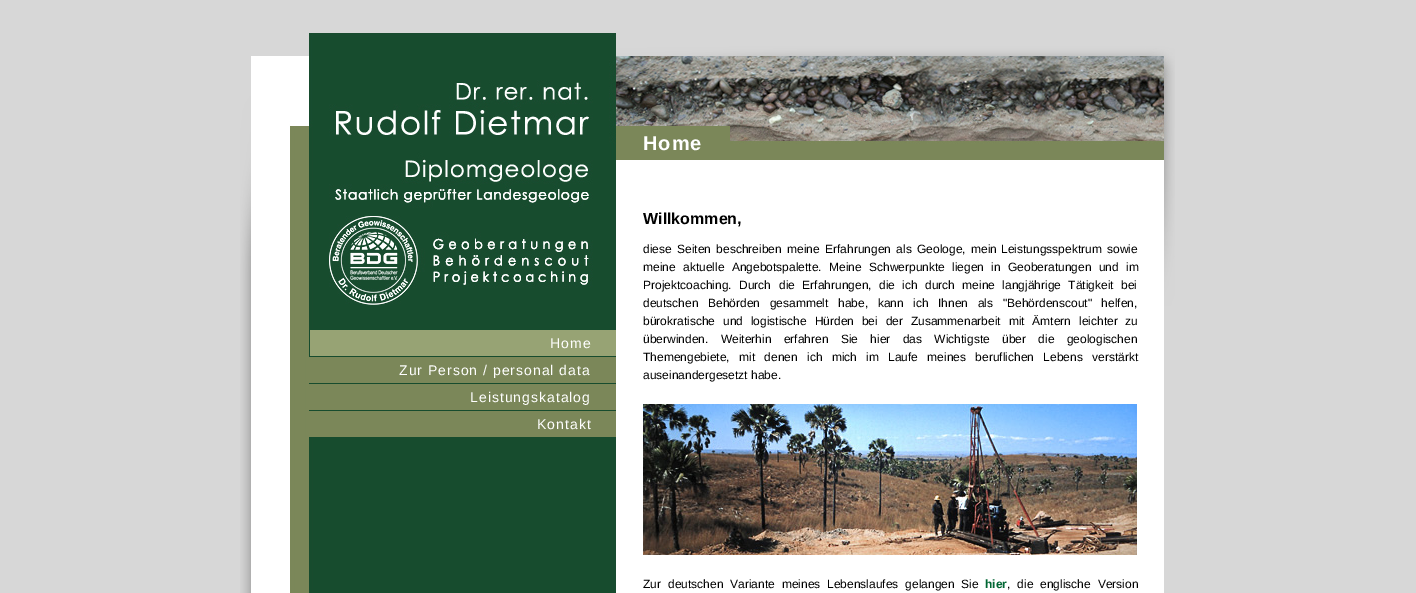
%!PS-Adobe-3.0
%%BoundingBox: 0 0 1416 593
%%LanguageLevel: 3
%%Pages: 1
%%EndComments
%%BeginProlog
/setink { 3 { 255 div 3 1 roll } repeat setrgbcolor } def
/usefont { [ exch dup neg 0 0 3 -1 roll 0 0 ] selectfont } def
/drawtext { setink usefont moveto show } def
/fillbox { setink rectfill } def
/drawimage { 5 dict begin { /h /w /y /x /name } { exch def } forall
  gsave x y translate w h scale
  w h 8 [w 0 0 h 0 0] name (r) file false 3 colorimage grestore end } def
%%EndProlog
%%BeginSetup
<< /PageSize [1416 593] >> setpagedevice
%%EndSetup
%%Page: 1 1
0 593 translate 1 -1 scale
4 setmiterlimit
0 0 1416 593 215 215 215 fillbox
(assets/img1.rgb) 240 306 924 287 drawimage
(assets/img2.rgb) 240 0 935 306 drawimage
616 126 114 18 123 135 89 fillbox
/LiberationSans-Bold 20 usefont
255 255 255 setink
643 150 moveto 1 0 (Home) ashow
310 330 306 26 151 163 116 fillbox
/LiberationSans-Regular 14 usefont
255 255 255 setink
550 348 moveto 1 0 (Home) ashow
309 357 307 26 123 135 89 fillbox
255 255 255 setink
399 375 moveto 1 0 (Zur Person / personal data) ashow
309 384 307 26 123 135 89 fillbox
255 255 255 setink
470 402 moveto 1 0 (Leistungskatalog) ashow
309 411 307 26 123 135 89 fillbox
255 255 255 setink
537 429 moveto 1 0 (Kontakt) ashow
(Willkommen,) 643 224 /LiberationSans-Bold 16 0 0 0 drawtext
/LiberationSans-Regular 12 usefont
643 253 moveto 2 0 32 (diese Seiten beschreiben meine Erfahrungen als Geologe, mein) widthshow
1001 253 moveto 2 0 32 (Leistungsspektrum sowie) widthshow
643 271 moveto 4 0 32 (meine aktuelle Angebotspalette. Meine Schwerpunkte) widthshow
952 271 moveto 4 0 32 (liegen in Geoberatungen und im) widthshow
643 289 moveto 4 0 32 (Projektcoaching. Durch) widthshow
779 289 moveto 4 0 32 (die Erfahrungen, die ich durch meine langjährige Tätigkeit bei) widthshow
643 307 moveto 6.25 0 32 (deutschen Behörden gesammelt) widthshow
838 307 moveto 6.25 0 32 (habe, kann ich Ihnen als "Behördenscout" helfen,) widthshow
643 325 moveto 4.5 0 32 (bürokratische und logistische Hürden bei der Zusammenarbeit mit Ämtern leichter zu) widthshow
643 343 moveto 9 0 32 (überwinden. Weiterhin erfahren Sie hier das Wichtigste über die geologischen) widthshow
643 361 moveto 6 0 32 (Themengebiete, mit denen ich mich) widthshow
866 361 moveto 6 0 32 (im Laufe meines beruflichen Lebens verstärkt) widthshow
(auseinandergesetzt habe.) 643 379 /LiberationSans-Regular 12 0 0 0 drawtext
(assets/img3.rgb) 643 404 494 151 drawimage
643 588 moveto 3.5 0 32 (Zur deutschen Variante meines Lebenslaufes gelangen Sie) widthshow
(hier) 985 588 /LiberationSans-Bold 12 0 102 51 drawtext
/LiberationSans-Regular 12 usefont
0 0 0 setink
1007 588 moveto 3.5 0 32 (, die englische Version) widthshow
showpage
%%EOF
